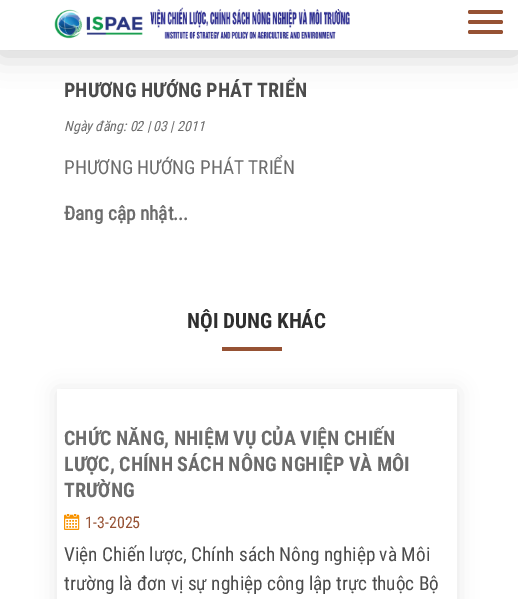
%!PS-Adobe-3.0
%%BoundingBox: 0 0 518 599
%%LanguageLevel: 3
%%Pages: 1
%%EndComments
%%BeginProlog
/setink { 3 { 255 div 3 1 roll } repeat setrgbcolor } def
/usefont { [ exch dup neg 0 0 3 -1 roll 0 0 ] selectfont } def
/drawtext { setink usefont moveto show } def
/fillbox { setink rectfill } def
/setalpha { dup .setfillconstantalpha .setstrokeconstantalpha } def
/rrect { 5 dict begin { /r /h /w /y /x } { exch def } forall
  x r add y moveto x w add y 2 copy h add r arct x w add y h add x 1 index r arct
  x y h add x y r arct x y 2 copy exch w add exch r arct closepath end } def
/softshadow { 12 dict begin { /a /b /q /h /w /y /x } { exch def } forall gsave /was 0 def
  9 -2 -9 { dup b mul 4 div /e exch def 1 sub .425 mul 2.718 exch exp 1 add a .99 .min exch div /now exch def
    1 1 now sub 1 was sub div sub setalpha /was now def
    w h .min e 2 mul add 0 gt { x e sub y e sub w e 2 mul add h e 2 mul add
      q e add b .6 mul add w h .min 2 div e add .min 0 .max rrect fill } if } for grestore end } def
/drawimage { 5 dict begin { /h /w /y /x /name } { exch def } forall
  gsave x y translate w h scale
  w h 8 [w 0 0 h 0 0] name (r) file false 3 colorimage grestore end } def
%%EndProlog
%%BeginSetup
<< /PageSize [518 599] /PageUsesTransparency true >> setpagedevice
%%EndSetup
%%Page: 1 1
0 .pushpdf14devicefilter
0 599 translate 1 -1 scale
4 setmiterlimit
0 0 518 599 255 255 255 fillbox
0 0 0 setink
0 4 518 50 0 15.5 0.2 softshadow
0 0 518 50 255 255 255 fillbox
(assets/img1.rgb) 54 7 296 33 drawimage
150 82 52 setink
468 20 35 4 2 rrect fill
468 10 35 4 2 rrect fill
468 30 35 4 2 rrect fill
(PHƯƠNG HƯỚNG PHÁT TRIỂN) 64 97 /RobotoCondensed-Bold 20 76 76 76 drawtext
(Ngày đăng: 02 | 03 | 2011) 64 131 /RobotoCondensed-Italic 14 108 108 108 drawtext
(PHƯƠNG HƯỚNG PHÁT TRIỂN) 64 174 /RobotoCondensed-Regular 19.25 108 108 108 drawtext
(Đang cập nhật...) 64 220 /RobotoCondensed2-Bold 19.25 108 108 108 drawtext
(NỘI DUNG KHÁC) 187 328 /RobotoCondensed-Bold 21 47 47 47 drawtext
222 347 60 4 150 82 52 fillbox
gsave
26 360 moveto 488 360 lineto 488 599 lineto 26 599 lineto closepath 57 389 moveto 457 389 lineto 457 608 lineto 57 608 lineto closepath eoclip newpath
0 0 0 setink
57 391 400 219 0 10 0.1 softshadow
grestore
(CHỨC NĂNG, NHIỆM VỤ CỦA VIỆN CHIẾN) 64 445 /RobotoCondensed-Bold 20 108 108 108 drawtext
(LƯỢC, CHÍNH SÁCH NÔNG NGHIỆP VÀ MÔI) 64 471 /RobotoCondensed-Bold 20 108 108 108 drawtext
(TRƯỜNG) 64 497 /RobotoCondensed-Bold 20 108 108 108 drawtext
(assets/img2.rgb) 64 514 16 16 drawimage
(1-3-2025) 85 528 /RobotoCondensed-Regular 16 150 82 52 drawtext
(Viện Chiến lược, Chính sách Nông nghiệp và Môi) 64 561 /RobotoCondensed-Regular 19.25 76 76 76 drawtext
(trường là đơn vị sự nghiệp công lập trực thuộc Bộ) 64 590 /RobotoCondensed-Regular 19.25 76 76 76 drawtext
.poppdf14devicefilter showpage
%%EOF
